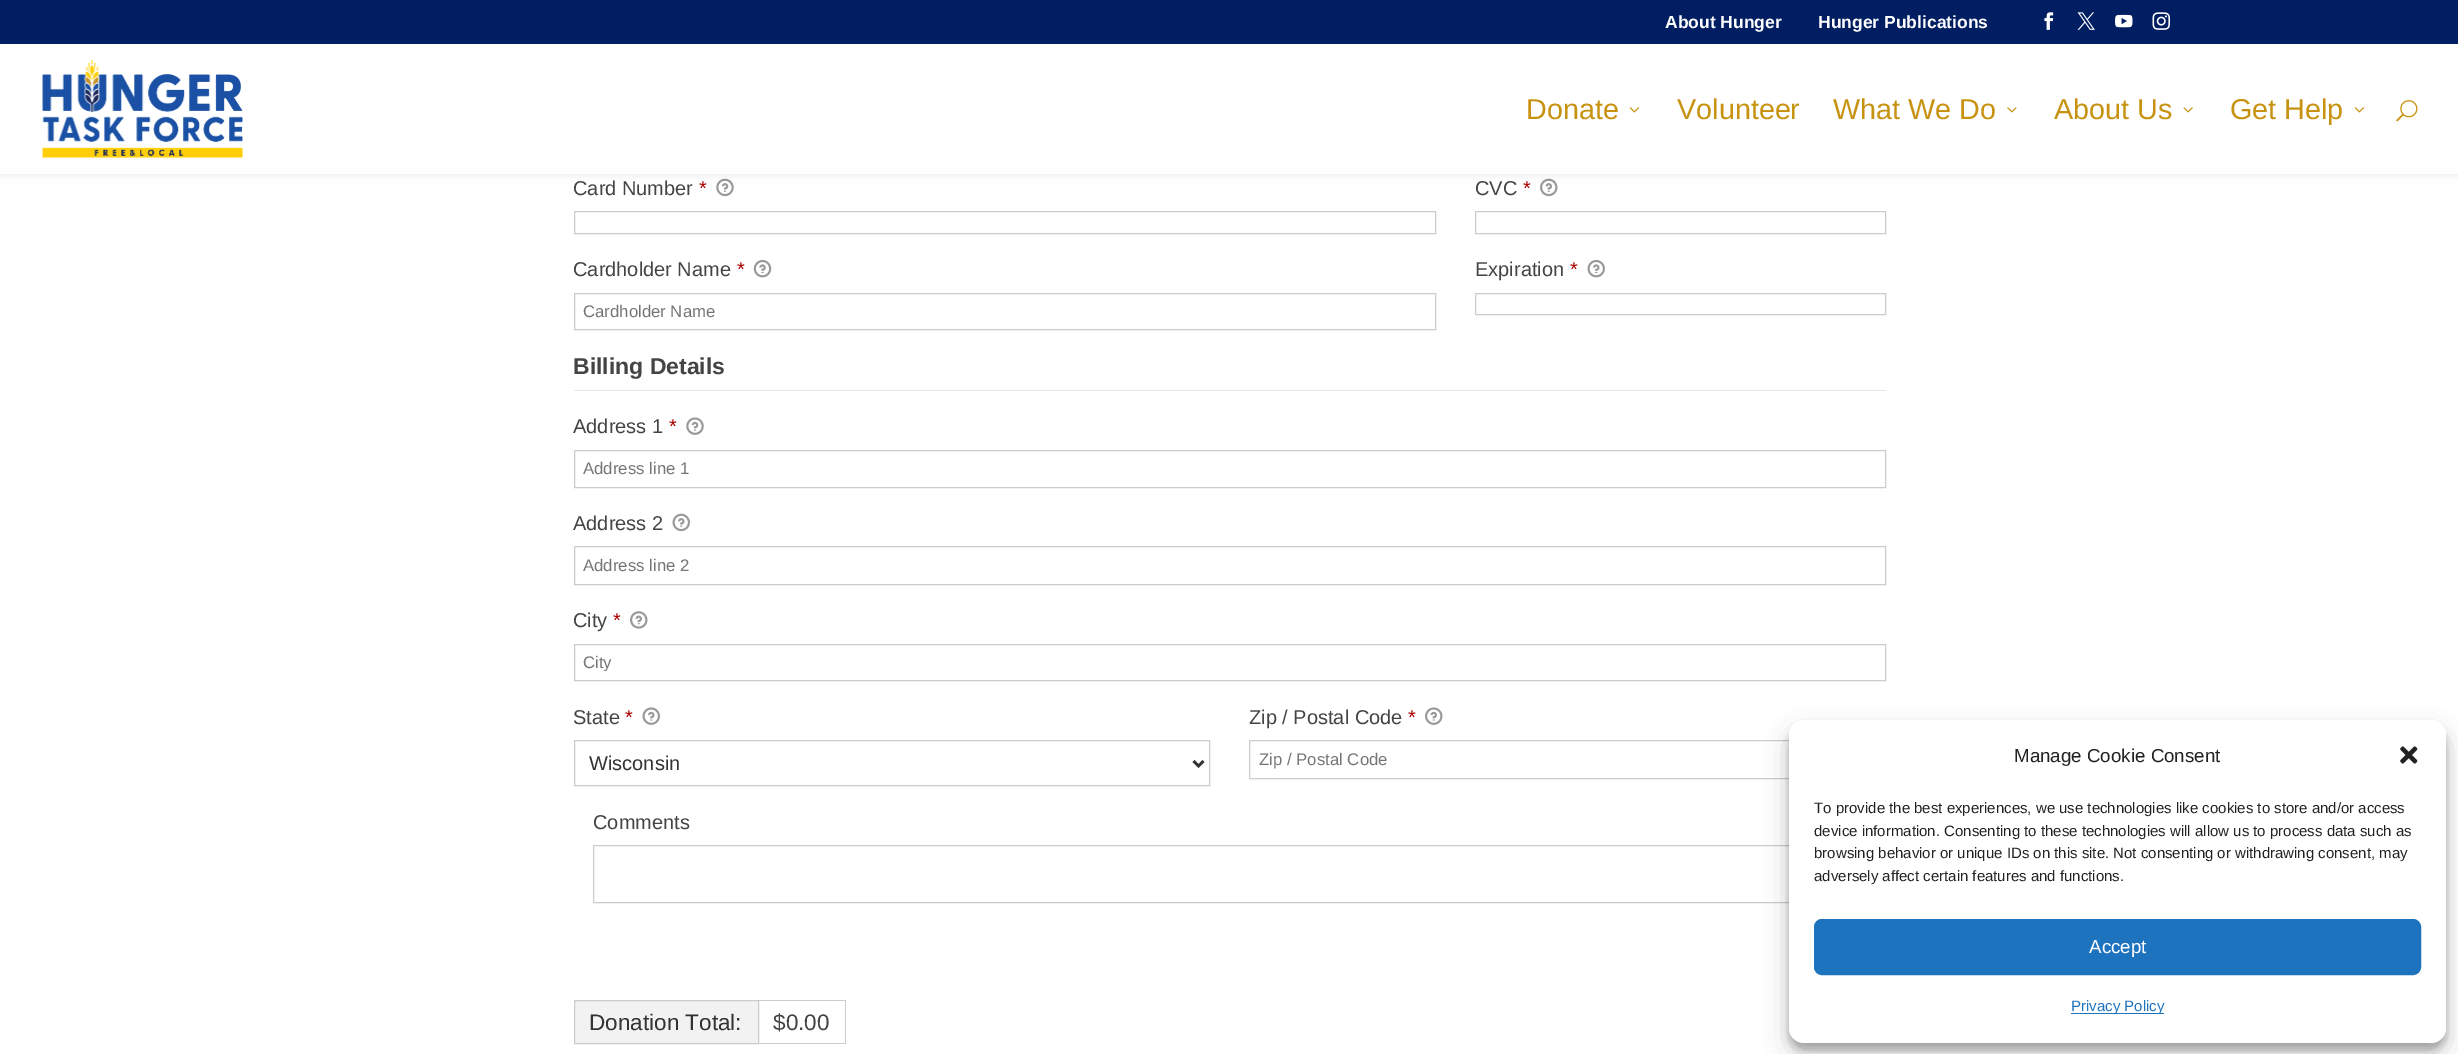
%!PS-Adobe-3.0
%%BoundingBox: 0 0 2458 1054
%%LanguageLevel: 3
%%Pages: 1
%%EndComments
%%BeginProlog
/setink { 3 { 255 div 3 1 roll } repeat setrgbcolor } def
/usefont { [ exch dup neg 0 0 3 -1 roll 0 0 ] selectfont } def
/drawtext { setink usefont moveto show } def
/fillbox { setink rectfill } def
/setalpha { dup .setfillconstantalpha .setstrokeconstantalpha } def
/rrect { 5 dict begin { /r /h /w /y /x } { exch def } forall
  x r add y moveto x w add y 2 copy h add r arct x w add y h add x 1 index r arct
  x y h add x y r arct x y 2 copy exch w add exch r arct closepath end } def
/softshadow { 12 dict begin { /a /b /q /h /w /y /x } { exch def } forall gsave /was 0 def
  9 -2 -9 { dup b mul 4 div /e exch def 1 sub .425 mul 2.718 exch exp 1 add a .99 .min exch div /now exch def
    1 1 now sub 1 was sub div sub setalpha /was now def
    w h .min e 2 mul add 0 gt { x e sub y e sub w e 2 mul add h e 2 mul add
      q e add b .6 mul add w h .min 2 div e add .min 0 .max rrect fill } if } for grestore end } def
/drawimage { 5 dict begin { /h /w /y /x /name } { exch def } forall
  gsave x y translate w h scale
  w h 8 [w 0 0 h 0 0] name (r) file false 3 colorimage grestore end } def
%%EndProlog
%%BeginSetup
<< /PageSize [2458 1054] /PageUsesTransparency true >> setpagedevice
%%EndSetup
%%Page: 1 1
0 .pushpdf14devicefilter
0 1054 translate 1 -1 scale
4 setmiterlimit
0 0 2458 1054 255 255 255 fillbox
(assets/img10.rgb) 716 178 18 19 drawimage
(assets/img11.rgb) 1540 178 18 19 drawimage
0 0 0 setink
0 44 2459 130 0 4.5 0.1 softshadow
0 0 2458 44 0 30 97 fillbox
(About Hunger) 1665 28 /LiberationSans-Bold 17.5 255 255 255 drawtext
(Hunger Publications) 1818 28 /LiberationSans-Bold 17.5 255 255 255 drawtext
(assets/img1.rgb) 2044 12 10 18 drawimage
(assets/img2.rgb) 2077 12 18 18 drawimage
(assets/img3.rgb) 2115 14 18 14 drawimage
(assets/img4.rgb) 2152 12 18 18 drawimage
0 44 2458 130 255 255 255 fillbox
(assets/img5.rgb) 42 60 201 98 drawimage
(Donate) 1526 119 /LiberationSans-Regular 28.75 200 146 17 drawtext
(assets/img6.rgb) 1629 107 10 6 drawimage
(Volunteer) 1677 119 /LiberationSans-Regular 28.75 200 146 17 drawtext
(What We Do) 1833 119 /LiberationSans-Regular 28.75 200 146 17 drawtext
(assets/img7.rgb) 2007 107 10 6 drawimage
(About Us) 2054 119 /LiberationSans-Regular 28.75 200 146 17 drawtext
(assets/img8.rgb) 2183 107 10 6 drawimage
(Get Help) 2230 119 /LiberationSans-Regular 28.75 200 146 17 drawtext
(assets/img6.rgb) 2354 107 10 6 drawimage
(assets/img9.rgb) 2396 100 22 22 drawimage
(Card Number) 573 195 /LiberationSans-Regular 20 68 68 68 drawtext
(*) 699 195 /LiberationSans-Regular 20 170 0 0 drawtext
204 204 204 setink
574.5 211.5 861 22 rectstroke
(CVC) 1475 195 /LiberationSans-Regular 20 68 68 68 drawtext
(*) 1523 195 /LiberationSans-Regular 20 170 0 0 drawtext
204 204 204 setink
1475.5 211.5 410 22 rectstroke
(Cardholder Name) 573 276 /LiberationSans-Regular 20 68 68 68 drawtext
(*) 737 276 /LiberationSans-Regular 20 170 0 0 drawtext
(assets/img12.rgb) 753 259 19 19 drawimage
204 204 204 setink
574.5 293.5 861 36 rectstroke
(Cardholder Name) 583 317 /LiberationSans-Regular 16.75 117 117 117 drawtext
(Expiration) 1475 276 /LiberationSans-Regular 20 68 68 68 drawtext
(*) 1570 276 /LiberationSans-Regular 20 170 0 0 drawtext
(assets/img13.rgb) 1587 259 18 19 drawimage
204 204 204 setink
1475.5 293.5 410 21 rectstroke
574 390 1312 1 230 230 230 fillbox
(Billing Details) 573 374 /LiberationSans-Bold 23 68 68 68 drawtext
(Address 1) 573 433 /LiberationSans-Regular 20 68 68 68 drawtext
(*) 669 433 /LiberationSans-Regular 20 170 0 0 drawtext
(assets/img14.rgb) 686 417 18 18 drawimage
204 204 204 setink
574.5 450.5 1311 37 rectstroke
(Address line 1) 583 474 /LiberationSans-Regular 16.75 117 117 117 drawtext
(Address 2) 573 530 /LiberationSans-Regular 20 68 68 68 drawtext
(assets/img15.rgb) 672 513 18 19 drawimage
204 204 204 setink
574.5 546.5 1311 38 rectstroke
(Address line 2) 583 571 /LiberationSans-Regular 16.75 117 117 117 drawtext
(City) 573 627 /LiberationSans-Regular 20 68 68 68 drawtext
(*) 613 627 /LiberationSans-Regular 20 170 0 0 drawtext
(assets/img16.rgb) 630 611 18 18 drawimage
204 204 204 setink
574.5 644.5 1311 36 rectstroke
gsave
583 653 1293 18 rectclip
(City) 583 668 /LiberationSans-Regular 16.75 117 117 117 drawtext
grestore
(State) 573 724 /LiberationSans-Regular 20 68 68 68 drawtext
(*) 625 724 /LiberationSans-Regular 20 170 0 0 drawtext
(assets/img17.rgb) 642 707 18 18 drawimage
204 204 204 setink
574.5 740.5 635 45 rectstroke
51 51 51 setink
2.5 setlinewidth
1193.5 761 moveto 1198.5 766 lineto 1203.5 761 lineto stroke
(Wisconsin) 589 770 /LiberationSans-Regular 20 51 51 51 drawtext
(Zip / Postal Code) 1249 724 /LiberationSans-Regular 20 68 68 68 drawtext
(*) 1408 724 /LiberationSans-Regular 20 170 0 0 drawtext
(assets/img18.rgb) 1425 707 18 18 drawimage
204 204 204 setink
1 setlinewidth
1249.5 740.5 636 38 rectstroke
(Zip / Postal Code) 1259 765 /LiberationSans-Regular 16.75 117 117 117 drawtext
(Comments) 593 829 /LiberationSans-Regular 20 68 68 68 drawtext
204 204 204 setink
593.5 845.5 1272 57 rectstroke
242 242 242 setink
574.5 1000.5 moveto 758.5 1000.5 lineto 758.5 1043.5 lineto 574.5 1043.5 lineto closepath gsave fill grestore
204 204 204 setink
stroke
(Donation Total:) 589 1030 /LiberationSans-Regular 22.5 51 51 51 drawtext
759 1000 87 1 204 204 204 fillbox
845 1000 1 44 204 204 204 fillbox
759 1043 87 1 204 204 204 fillbox
($0.00) 773 1030 /LiberationSans-Regular 22.5 68 68 68 drawtext
0 0 0 setink
1789 728 657 322 15 4 0.23 softshadow
1789 733 657 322 15 12.5 0.19 softshadow
255 255 255 setink
1789 720 657 323 15 rrect fill
(Manage Cookie Consent) 2014 762 /LiberationSans-Regular 18.75 34 34 34 drawtext
(assets/img19.rgb) 2400 746 18 18 drawimage
(To provide the best experiences, we use technologies like cookies to store and/or access) 1814 813 /LiberationSans-Regular 15 34 34 34 drawtext
(device information. Consenting to these technologies will allow us to process data such as) 1814 836 /LiberationSans-Regular 15 34 34 34 drawtext
(browsing behavior or unique IDs on this site. Not consenting or withdrawing consent, may) 1814 858 /LiberationSans-Regular 15 34 34 34 drawtext
(adversely affect certain features and functions.) 1814 881 /LiberationSans-Regular 15 34 34 34 drawtext
30 115 190 setink
1814.5 919.5 606 55 7.5 rrect gsave fill grestore
stroke
(Accept) 2089 953 /LiberationSans-Regular 18.75 255 255 255 drawtext
2071 1013 93 1 30 115 190 fillbox
(Privacy Policy) 2071 1011 /LiberationSans-Regular 15 30 115 190 drawtext
.poppdf14devicefilter showpage
%%EOF
